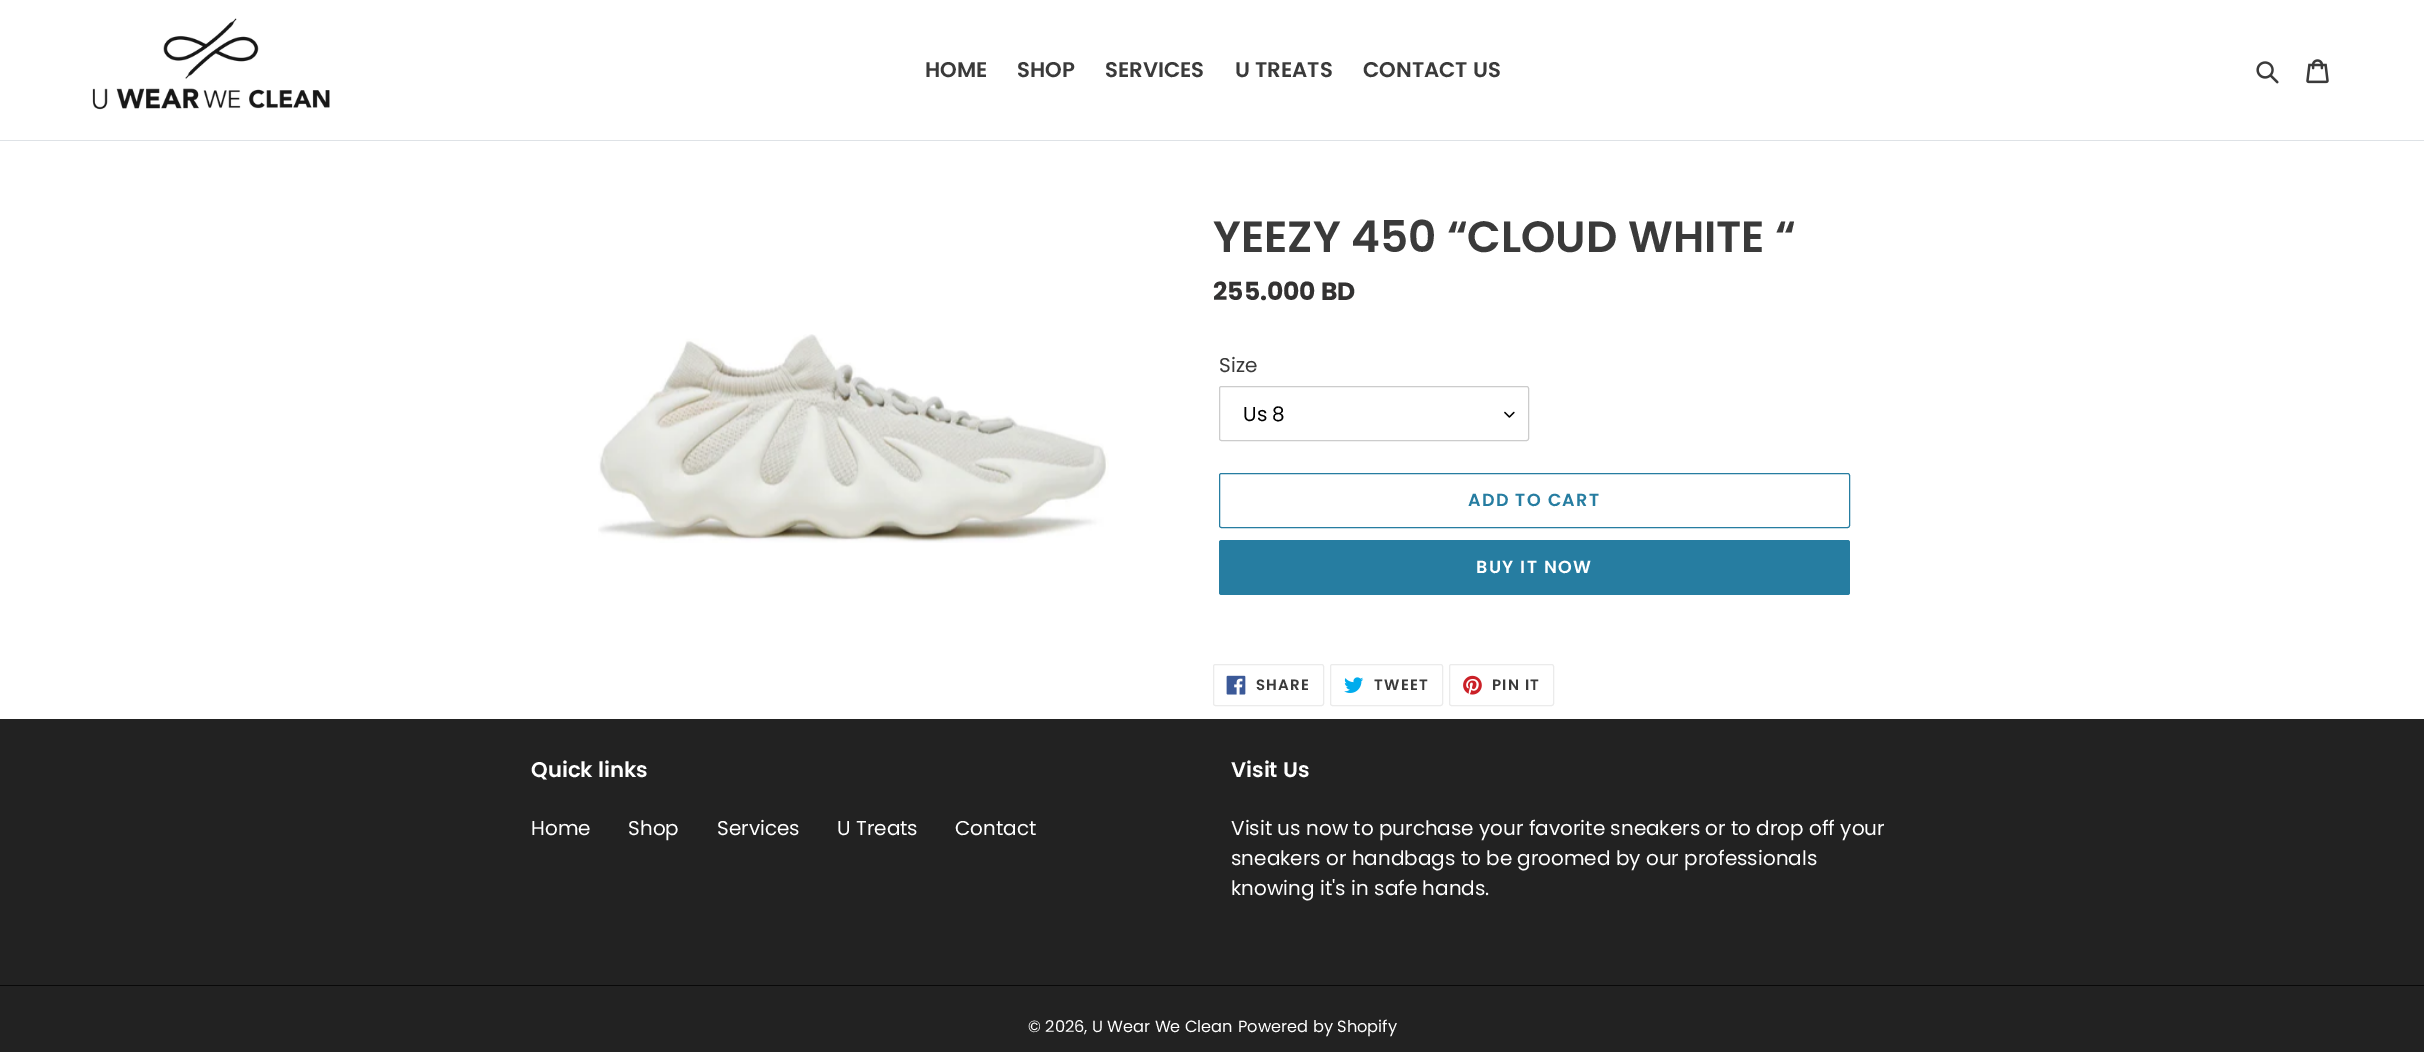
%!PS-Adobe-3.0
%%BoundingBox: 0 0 2424 1052
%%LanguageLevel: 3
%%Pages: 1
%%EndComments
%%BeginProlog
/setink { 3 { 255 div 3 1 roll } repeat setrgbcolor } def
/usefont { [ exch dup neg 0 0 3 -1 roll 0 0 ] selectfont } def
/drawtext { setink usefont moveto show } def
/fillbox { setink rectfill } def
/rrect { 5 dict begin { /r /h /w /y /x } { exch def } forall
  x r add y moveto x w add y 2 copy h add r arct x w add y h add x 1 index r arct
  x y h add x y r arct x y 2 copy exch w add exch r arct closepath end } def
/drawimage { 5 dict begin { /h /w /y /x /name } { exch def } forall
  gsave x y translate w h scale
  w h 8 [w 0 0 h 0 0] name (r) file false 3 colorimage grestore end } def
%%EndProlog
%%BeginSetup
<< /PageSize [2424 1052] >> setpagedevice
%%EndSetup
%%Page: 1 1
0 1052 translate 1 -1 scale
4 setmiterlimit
0 0 2424 1052 255 255 255 fillbox
0 140 2424 1 222 226 230 fillbox
(assets/img1.rgb) 92 18 238 92 drawimage
(HOME) 925 77 /Poppins-SemiBold 21.25 58 58 58 drawtext
(SHOP) 1017 77 /Poppins-SemiBold 21.25 58 58 58 drawtext
(SERVICES) 1105 77 /Poppins-SemiBold 21.25 58 58 58 drawtext
(U TREATS) 1235 77 /Poppins-SemiBold 21.25 58 58 58 drawtext
(CONTACT US) 1363 77 /Poppins-SemiBold 21.25 58 58 58 drawtext
(assets/img2.rgb) 2256 61 23 23 drawimage
(assets/img3.rgb) 2306 59 23 25 drawimage
(assets/img4.rgb) 598 334 511 209 drawimage
(YEEZY 450 “CLOUD WHITE “) 1213 252 /Poppins-SemiBold 43.75 58 58 58 drawtext
(255.000 BD) 1213 300 /Poppins-Bold 25 51 50 50 drawtext
(Size) 1219 372 /Poppins-Regular 20 58 58 58 drawtext
(assets/img5.rgb) 1504 411 11 7 drawimage
204 204 204 setink
1219.5 386.5 309 54 2 rrect stroke
(Us 8) 1243 421 /Poppins-Regular 20 0 0 0 drawtext
38 125 161 setink
1219.5 473.5 630 54 2 rrect stroke
/Poppins-SemiBold 17.5 usefont
1468 506 moveto 1.4 0 (ADD TO CART) ashow
1219 540 631 55 2.5 rrect fill
255 255 255 setink
1476 573 moveto 1.4 0 (BUY IT NOW) ashow
235 235 235 setink
1213.5 664.5 110 41 2 rrect stroke
(assets/img6.rgb) 1226 675 20 20 drawimage
/Poppins-SemiBold 15 usefont
58 58 58 setink
1256 690 moveto 1.25 0 (SHARE) ashow
235 235 235 setink
1330.5 664.5 112 41 2 rrect stroke
(assets/img7.rgb) 1344 677 20 16 drawimage
58 58 58 setink
1374 690 moveto 1.25 0 (TWEET) ashow
235 235 235 setink
1449.5 664.5 104 41 2 rrect stroke
(assets/img8.rgb) 1463 675 19 20 drawimage
58 58 58 setink
1492 690 moveto 1.25 0 (PIN IT) ashow
0 719 2424 333 34 34 34 fillbox
(Quick links) 531 777 /Poppins-SemiBold 21.25 255 255 255 drawtext
(Home) 531 835 /Poppins-Regular 20 255 255 255 drawtext
(Shop) 628 835 /Poppins-Regular 20 255 255 255 drawtext
(Services) 717 835 /Poppins-Regular 20 255 255 255 drawtext
(U Treats) 837 835 /Poppins-Regular 20 255 255 255 drawtext
(Contact) 955 835 /Poppins-Regular 20 255 255 255 drawtext
(Visit Us) 1231 777 /Poppins-SemiBold 21.25 255 255 255 drawtext
(Visit us now to purchase your favorite sneakers or to drop off your) 1231 835 /Poppins-Regular 20 255 255 255 drawtext
(sneakers or handbags to be groomed by our professionals) 1231 865 /Poppins-Regular 20 255 255 255 drawtext
(knowing it's in safe hands.) 1231 895 /Poppins-Regular 20 255 255 255 drawtext
0 985 2424 1 9 9 9 fillbox
(© 2026, U Wear We Clean) 1028 1032 /Poppins-Regular 16.25 255 255 255 drawtext
(Powered by Shopify) 1238 1032 /Poppins-Regular 16.25 255 255 255 drawtext
showpage
%%EOF
